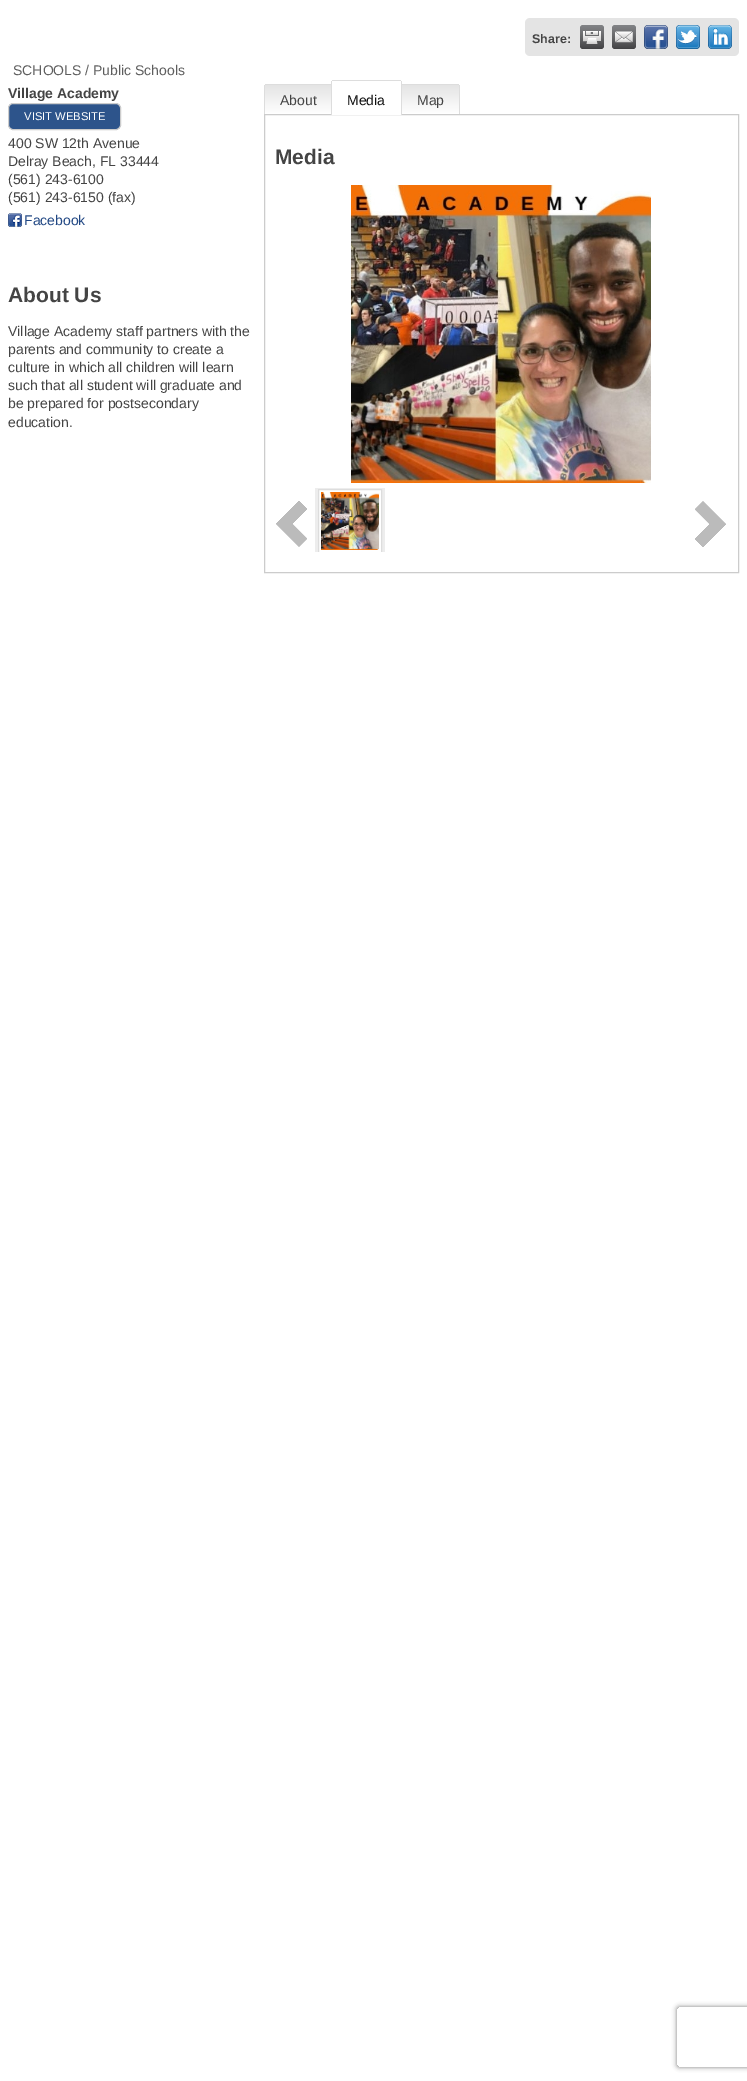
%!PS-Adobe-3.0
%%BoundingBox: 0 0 747 2081
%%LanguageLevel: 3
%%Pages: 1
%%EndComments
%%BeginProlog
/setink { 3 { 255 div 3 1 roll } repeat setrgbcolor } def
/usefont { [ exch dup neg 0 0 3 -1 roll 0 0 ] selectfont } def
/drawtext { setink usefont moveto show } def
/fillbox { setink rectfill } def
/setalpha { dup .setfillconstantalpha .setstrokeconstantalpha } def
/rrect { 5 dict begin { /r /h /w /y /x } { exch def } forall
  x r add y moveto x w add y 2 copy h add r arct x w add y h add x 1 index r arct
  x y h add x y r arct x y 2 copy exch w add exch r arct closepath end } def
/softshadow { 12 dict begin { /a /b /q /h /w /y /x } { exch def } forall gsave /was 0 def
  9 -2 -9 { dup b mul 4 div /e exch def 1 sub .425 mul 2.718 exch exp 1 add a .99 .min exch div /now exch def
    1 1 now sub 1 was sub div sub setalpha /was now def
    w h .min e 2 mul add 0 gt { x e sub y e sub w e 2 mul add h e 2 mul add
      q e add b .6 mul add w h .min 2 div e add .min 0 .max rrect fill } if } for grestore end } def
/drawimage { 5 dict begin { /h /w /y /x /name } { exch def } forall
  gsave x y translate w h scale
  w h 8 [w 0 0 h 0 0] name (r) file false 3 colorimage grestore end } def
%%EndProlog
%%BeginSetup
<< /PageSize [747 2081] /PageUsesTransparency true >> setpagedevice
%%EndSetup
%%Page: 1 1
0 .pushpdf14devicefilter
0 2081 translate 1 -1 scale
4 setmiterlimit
0 0 747 2081 255 255 255 fillbox
228 228 228 setink
525 18 214 38 5 rrect fill
(Share:) 532 43 /LiberationSans-Bold 12.5 68 68 68 drawtext
(assets/img1.rgb) 580 25 24 24 drawimage
(assets/img2.rgb) 612 25 24 24 drawimage
(assets/img3.rgb) 644 25 24 24 drawimage
(assets/img4.rgb) 676 25 24 24 drawimage
(assets/img5.rgb) 708 25 24 24 drawimage
(SCHOOLS / Public Schools) 13 75 /LiberationSans-Regular 14 94 94 94 drawtext
(Village Academy) 8 98 /LiberationSans-Bold 14 68 68 68 drawtext
45 84 139 setink
8.5 103.5 112 26 4.5 rrect gsave fill grestore
204 204 204 setink
stroke
(VISIT WEBSITE) 24 120 /LiberationSans-Regular 11.25 255 255 255 drawtext
(400 SW 12th Avenue) 8 148 /LiberationSans-Regular 14 68 68 68 drawtext
(Delray Beach, FL 33444) 8 166 /LiberationSans-Regular 14 68 68 68 drawtext
(\(561\) 243-6100) 8 184 /LiberationSans-Regular 14 68 68 68 drawtext
(\(561\) 243-6150 \(fax\)) 8 202 /LiberationSans-Regular 14 68 68 68 drawtext
(assets/img6.rgb) 8 213 14 14 drawimage
(Facebook) 24 225 /LiberationSans-Regular 14 34 72 132 drawtext
(About Us) 8 302 /LiberationSans-Bold 21 68 68 68 drawtext
(Village Academy staff partners with the) 8 336 /LiberationSans-Regular 14 68 68 68 drawtext
(parents and community to create a) 8 354 /LiberationSans-Regular 14 68 68 68 drawtext
(culture in which all children will learn) 8 372 /LiberationSans-Regular 14 68 68 68 drawtext
(such that all student will graduate and) 8 390 /LiberationSans-Regular 14 68 68 68 drawtext
(be prepared for postsecondary) 8 408 /LiberationSans-Regular 14 68 68 68 drawtext
(education.) 8 427 /LiberationSans-Regular 14 68 68 68 drawtext
gsave 266 85 moveto 331 85 lineto 331 114 lineto 265 114 lineto 265 86 lineto 265 85.5 265.5 85 266 85 curveto closepath clip newpath
<< /ShadingType 2 /ColorSpace /DeviceRGB /Coords [298 85 298 114] /Extend [true true] /Function << /FunctionType 2 /Domain [0 1] /C0 [0.894 0.894 0.894] /C1 [1 1 1] /N 1 >> >> shfill grestore
265 84 67 1 221 221 221 fillbox
264 85 1 29 221 221 221 fillbox
(About) 280 105 /LiberationSans-Regular 14 68 68 68 drawtext
204 204 204 setink
264.5 114.5 474 458 rectstroke
255 255 255 setink
333 81 moveto 400 81 lineto 400.5 81 401 81.5 401 82 curveto 401 115 lineto 332 115 lineto 332 82 lineto 332 81.5 332.5 81 333 81 curveto closepath fill
332 80 69 1 221 221 221 fillbox
401 81 1 34 221 221 221 fillbox
331 81 1 34 221 221 221 fillbox
(Media) 347 105 /LiberationSans-Regular 14 17 17 17 drawtext
gsave 402 85 moveto 458 85 lineto 458.5 85 459 85.5 459 86 curveto 459 114 lineto 402 114 lineto closepath clip newpath
<< /ShadingType 2 /ColorSpace /DeviceRGB /Coords [431 85 431 114] /Extend [true true] /Function << /FunctionType 2 /Domain [0 1] /C0 [0.894 0.894 0.894] /C1 [1 1 1] /N 1 >> >> shfill grestore
402 84 57 1 221 221 221 fillbox
459 85 1 29 221 221 221 fillbox
(Map) 417 105 /LiberationSans-Regular 14 68 68 68 drawtext
(Media) 275 164 /LiberationSans-Bold 21 68 68 68 drawtext
(assets/img7.rgb) 351 185 300 298 drawimage
(assets/img8.rgb) 276 501 31 46 drawimage
315 488 70 64 237 237 237 fillbox
319 490 62 62 255 255 255 fillbox
gsave
315 488 70 64 rectclip
221 221 221 setink
318.5 489.5 63 63 rectstroke
grestore
(assets/img9.rgb) 321 492 58 58 drawimage
(assets/img10.rgb) 695 501 31 46 drawimage
gsave
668 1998 moveto 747 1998 lineto 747 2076 lineto 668 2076 lineto closepath 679 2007 moveto 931 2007 lineto 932 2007 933 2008 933 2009 curveto 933 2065 lineto 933 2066 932 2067 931 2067 curveto 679 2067 lineto 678 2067 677 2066 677 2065 curveto 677 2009 lineto 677 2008 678 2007 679 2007 curveto closepath eoclip newpath
128 128 128 setink
677 2007 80 60 2 2.5 1 softshadow
grestore
.poppdf14devicefilter showpage
%%EOF
